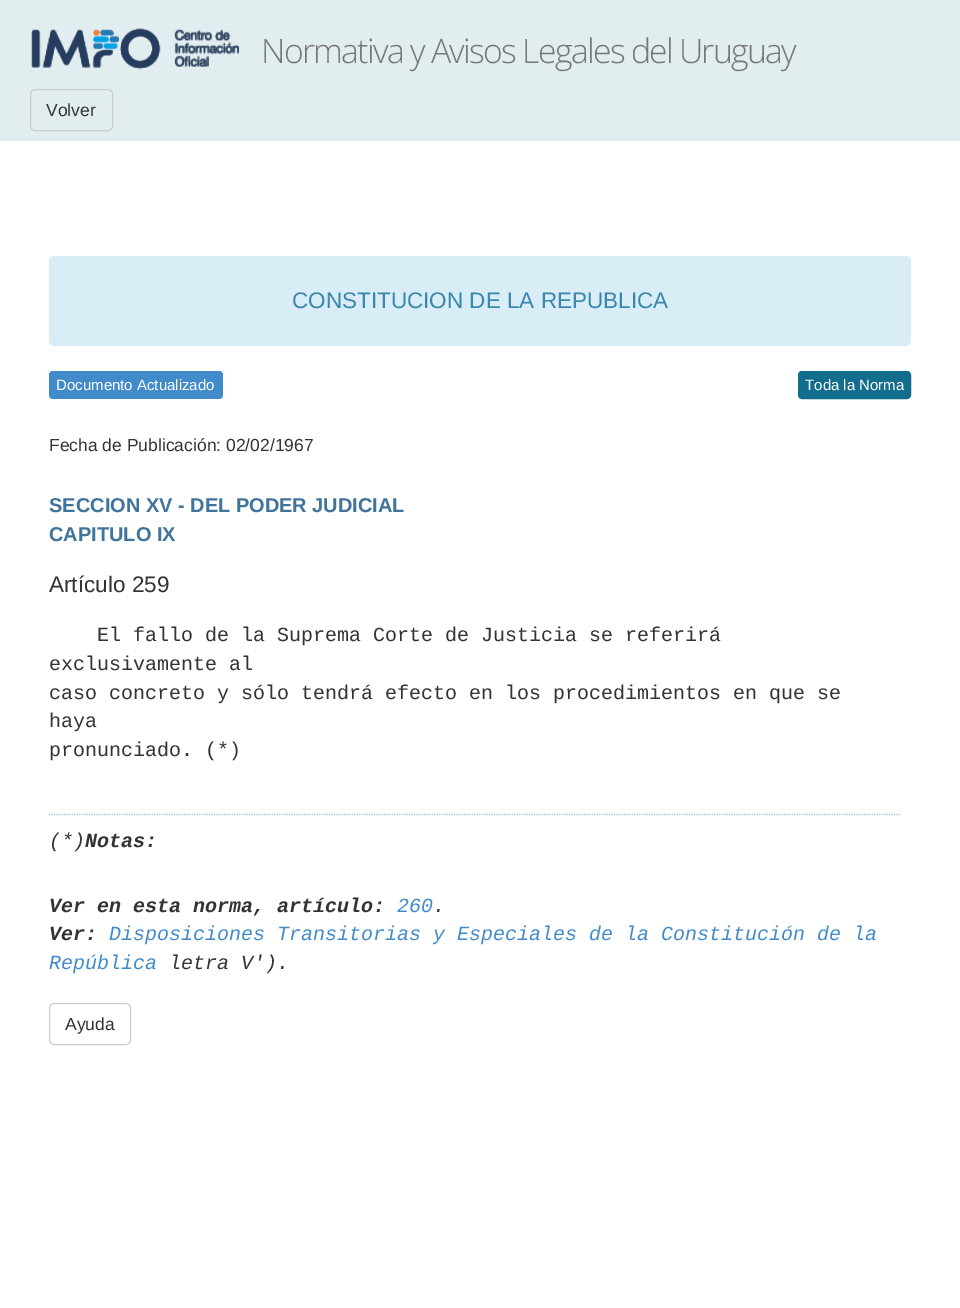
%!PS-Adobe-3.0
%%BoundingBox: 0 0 960 1308
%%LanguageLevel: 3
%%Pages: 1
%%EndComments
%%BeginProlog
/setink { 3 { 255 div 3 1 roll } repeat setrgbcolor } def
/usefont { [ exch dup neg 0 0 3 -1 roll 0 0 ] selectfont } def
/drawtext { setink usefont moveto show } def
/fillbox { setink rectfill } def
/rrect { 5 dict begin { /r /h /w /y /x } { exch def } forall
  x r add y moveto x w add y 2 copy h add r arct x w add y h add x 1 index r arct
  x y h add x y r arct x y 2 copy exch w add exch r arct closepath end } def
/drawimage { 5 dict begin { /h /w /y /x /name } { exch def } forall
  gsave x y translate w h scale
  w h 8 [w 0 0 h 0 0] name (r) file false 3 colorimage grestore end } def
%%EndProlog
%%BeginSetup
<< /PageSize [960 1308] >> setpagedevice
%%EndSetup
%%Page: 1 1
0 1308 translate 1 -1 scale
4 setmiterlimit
0 0 960 1308 255 255 255 fillbox
0 0 960 141 226 237 240 fillbox
(assets/img1.rgb) 31 28 208 42 drawimage
(assets/img2.rgb) 31 28 208 41 drawimage
/OpenSans-Light 33.75 usefont
119 119 119 setink
261 63 moveto -1.7 0 (Normativa y Avisos Legales del Uruguay) ashow
204 204 204 setink
30.5 89.5 82 41 4.5 rrect stroke
(Volver) 46 116 /LiberationSans-Regular 17.5 51 51 51 drawtext
217 237 247 setink
49 256 862 90 5 rrect fill
(CONSTITUCION DE LA REPUBLICA) 292 308 /LiberationSans-Regular 22.5 58 135 173 drawtext
66 139 202 setink
49 371 174 28 4 rrect fill
(Documento Actualizado) 56 390 /LiberationSans-Regular 15 255 255 255 drawtext
19 109 141 setink
798.5 371.5 112 27 3.5 rrect gsave fill grestore
stroke
(Toda la Norma) 805 390 /LiberationSans-Regular 15 255 255 255 drawtext
(Fecha de Publicación: 02/02/1967) 49 451 /LiberationSans-Regular 17.5 51 51 51 drawtext
(SECCION XV - DEL PODER JUDICIAL) 49 512 /LiberationSans-Bold 20 64 116 157 drawtext
(CAPITULO IX) 49 541 /LiberationSans-Bold 20 64 116 157 drawtext
(Artículo 259) 49 592 /LiberationSans-Regular 22.5 51 51 51 drawtext
(El fallo de la Suprema Corte de Justicia se referirá) 97 641 /LiberationMono-Regular 20 51 51 51 drawtext
(exclusivamente al) 49 670 /LiberationMono-Regular 20 51 51 51 drawtext
(caso concreto y sólo tendrá efecto en los procedimientos en que se) 49 699 /LiberationMono-Regular 20 51 51 51 drawtext
(haya) 49 727 /LiberationMono-Regular 20 51 51 51 drawtext
(pronunciado. \(*\)) 49 756 /LiberationMono-Regular 20 51 51 51 drawtext
173 195 211 setink
1.2 setlinewidth
[1.25 1.25] 0 setdash
49 814.5 moveto 900 814.5 lineto stroke
(\(*\)) 49 847 /LiberationMono-Italic 20 51 51 51 drawtext
(Notas:) 85 847 /LiberationMono-BoldItalic 20 51 51 51 drawtext
(Ver en esta norma, artículo:) 49 912 /LiberationMono-BoldItalic 20 51 51 51 drawtext
(260) 397 912 /LiberationMono-Italic 20 66 139 202 drawtext
(.) 433 912 /LiberationMono-Italic 20 51 51 51 drawtext
(Ver:) 49 940 /LiberationMono-BoldItalic 20 51 51 51 drawtext
(Disposiciones Transitorias y Especiales de la Constitución de la) 109 940 /LiberationMono-Italic 20 66 139 202 drawtext
(República) 49 969 /LiberationMono-Italic 20 66 139 202 drawtext
(letra V'\).) 169 969 /LiberationMono-Italic 20 51 51 51 drawtext
204 204 204 setink
1 setlinewidth
[] 0 setdash
49.5 1003.5 81 41 4.5 rrect stroke
(Ayuda) 65 1030 /LiberationSans-Regular 17.5 51 51 51 drawtext
showpage
%%EOF
